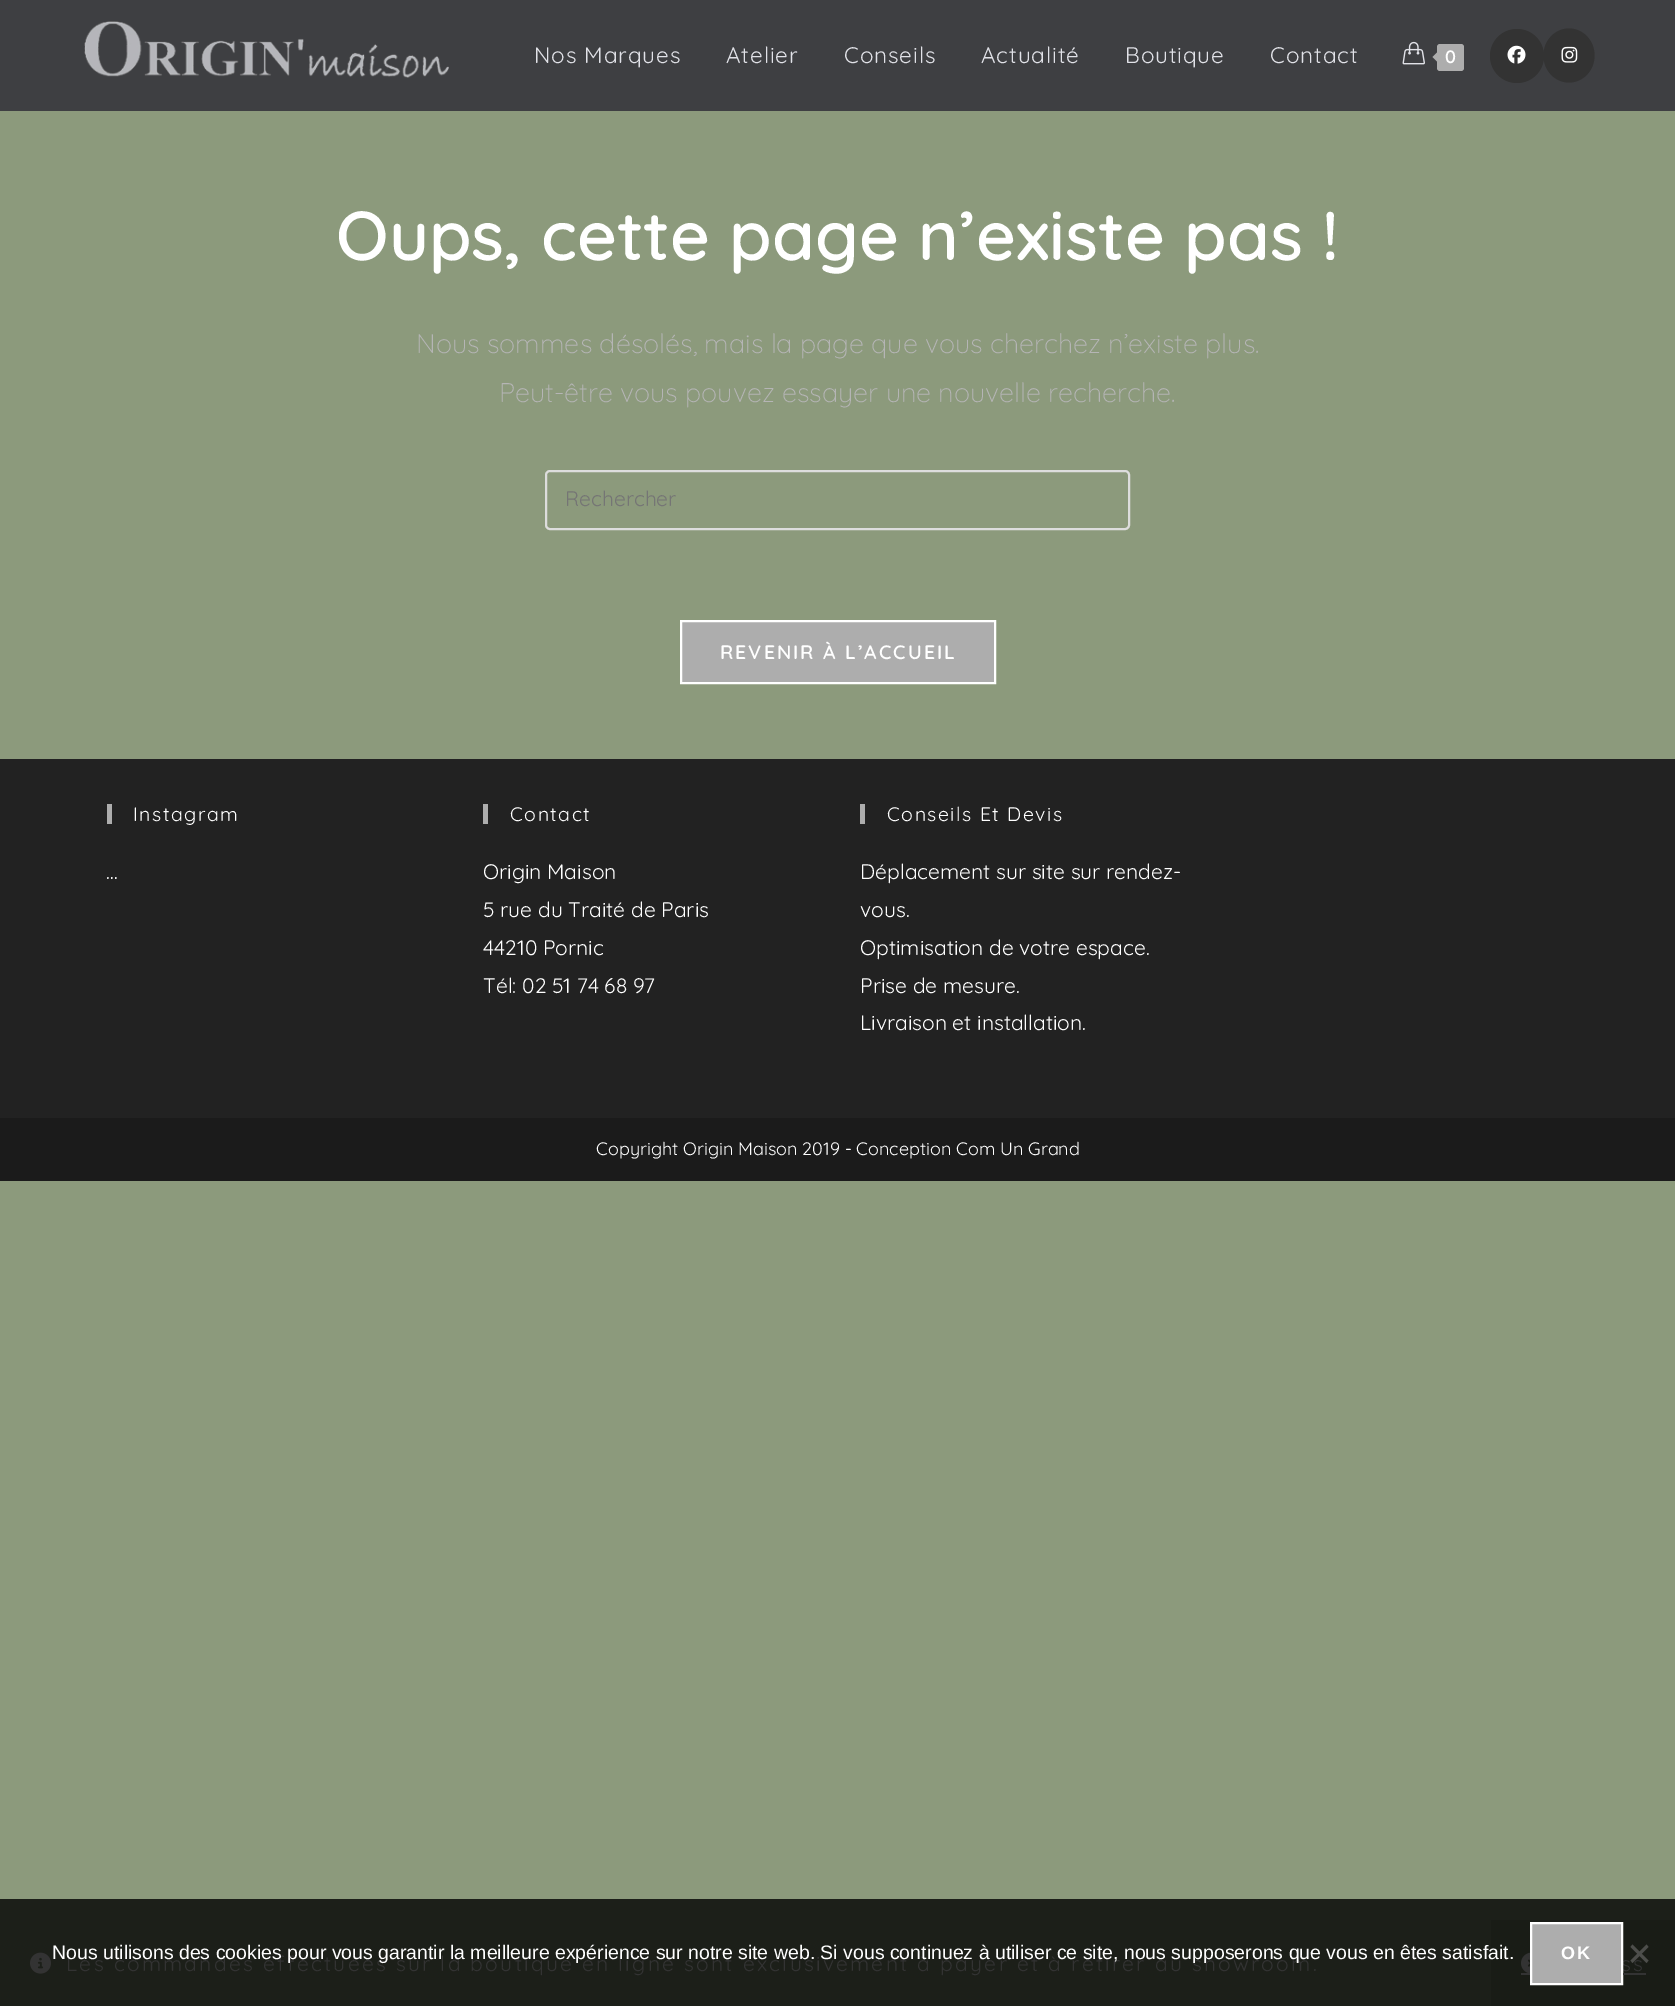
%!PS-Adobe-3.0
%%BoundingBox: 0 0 1675 2006
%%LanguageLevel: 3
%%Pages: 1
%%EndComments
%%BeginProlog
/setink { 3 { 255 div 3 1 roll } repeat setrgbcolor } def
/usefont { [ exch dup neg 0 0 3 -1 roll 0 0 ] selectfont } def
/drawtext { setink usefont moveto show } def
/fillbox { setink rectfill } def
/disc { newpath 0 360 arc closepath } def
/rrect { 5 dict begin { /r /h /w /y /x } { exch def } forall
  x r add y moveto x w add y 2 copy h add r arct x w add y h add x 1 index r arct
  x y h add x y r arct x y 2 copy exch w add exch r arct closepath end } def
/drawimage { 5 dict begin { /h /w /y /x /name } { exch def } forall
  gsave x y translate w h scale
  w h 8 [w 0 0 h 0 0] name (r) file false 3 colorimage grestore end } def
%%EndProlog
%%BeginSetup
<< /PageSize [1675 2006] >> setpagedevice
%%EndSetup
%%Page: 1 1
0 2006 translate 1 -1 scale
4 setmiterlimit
0 0 1675 2006 140 154 124 fillbox
0 1899 1675 107 28 31 25 fillbox
0 0 1675 111 62 63 66 fillbox
(assets/img1.rgb) 84 21 365 57 drawimage
/Quicksand-Regular 22.5 usefont
225 226 232 setink
534 63 moveto 0.9 0 (Nos Marques) ashow
726 63 moveto 0.9 0 (Atelier) ashow
844 63 moveto 0.9 0 (Conseils) ashow
981 63 moveto 0.9 0 (Actualité) ashow
1125 63 moveto 0.9 0 (Boutique) ashow
1270 63 moveto 0.9 0 (Contact) ashow
(assets/img2.rgb) 1402 41 23 24 drawimage
173 173 173 setink
1437 44 27 27 3 rrect fill
1440 49.5 moveto 1440 64.5 lineto 1432.5 57 lineto closepath fill
(0) 1445 63 /Quicksand-SemiBold 18 255 255 255 drawtext
51 51 51 setink
1517 56 27 disc fill
(assets/img3.rgb) 1507 45 19 19 drawimage
1569 28.5 moveto 1583 28.5 1594.5 40.5 1594.5 55.5 curveto 1594.5 70.5 1583 82.5 1569 82.5 curveto 1555 82.5 1543.5 70.5 1543.5 55.5 curveto 1543.5 40.5 1555 28.5 1569 28.5 curveto closepath fill
(assets/img4.rgb) 1561 46 17 17 drawimage
(Oups, cette page n’existe pas !) 336 260 /Quicksand-SemiBold 69 255 255 255 drawtext
(Nous sommes désolés, mais la page que vous cherchez n’existe plus.) 416 353 /Quicksand-Light 27 181 181 181 drawtext
(Peut-être vous pouvez essayer une nouvelle recherche.) 499 402 /Quicksand-Light 27 181 181 181 drawtext
221 221 221 setink
2 setlinewidth
546 471 583 58 4 rrect stroke
(Rechercher) 565 506 /Quicksand-Regular 21 117 117 117 drawtext
173 173 173 setink
681 621 moveto 995 621 lineto 995 683 lineto 681 683 lineto closepath gsave fill grestore
255 255 255 setink
stroke
/Quicksand-SemiBold 19.5 usefont
720 659 moveto 2 0 (REVENIR À L’ACCUEIL) ashow
0 759 1675 359 34 34 34 fillbox
107 804 5 20 173 173 173 fillbox
/Quicksand-Regular 19.5 usefont
255 255 255 setink
133 821 moveto 1.5 0 (Instagram) ashow
(…) 106 879 /Quicksand-Regular 21 255 255 255 drawtext
483 804 5 20 173 173 173 fillbox
/Quicksand-Regular 19.5 usefont
255 255 255 setink
510 821 moveto 1.5 0 (Contact) ashow
(Origin Maison) 483 879 /Quicksand-Regular 21 255 255 255 drawtext
(5 rue du Traité de Paris) 483 917 /Quicksand-Regular 21 255 255 255 drawtext
(44210 Pornic) 483 955 /Quicksand-Regular 21 255 255 255 drawtext
(Tél: 02 51 74 68 97) 483 993 /Quicksand-Regular 21 255 255 255 drawtext
860 804 5 20 173 173 173 fillbox
/Quicksand-Regular 19.5 usefont
255 255 255 setink
887 821 moveto 1.5 0 (Conseils Et Devis) ashow
(Déplacement sur site sur rendez-) 860 879 /Quicksand-Regular 21 255 255 255 drawtext
(vous.) 860 917 /Quicksand-Regular 21 255 255 255 drawtext
(Optimisation de votre espace.) 860 955 /Quicksand-Regular 21 255 255 255 drawtext
(Prise de mesure.) 860 993 /Quicksand-Regular 21 255 255 255 drawtext
(Livraison et installation.) 860 1030 /Quicksand-Regular 21 255 255 255 drawtext
0 1118 1675 63 27 27 27 fillbox
(Copyright Origin Maison 2019 - Conception Com Un Grand) 596 1155 /Quicksand-Regular 18 255 255 255 drawtext
/Quicksand-Regular 21 usefont
51 51 51 setink
66 1971 moveto 2.25 0 (Les commandes effectuées sur la boutique en ligne sont exclusivement à payer et à retirer au showroom.) ashow
1491 1920 184 86 25 28 22 fillbox
(Nous utilisons des cookies pour vous garantir la meilleure expérience sur notre site web. Si vous continuez à utiliser ce site, nous supposerons que vous en êtes satisfait.) 52 1959 /LiberationSans-Regular 19.5 255 255 255 drawtext
/Quicksand-Regular 21 usefont
51 51 51 setink
1621 1971 moveto 2.25 0 (ss) ashow
173 173 173 setink
1531 1923 moveto 1622 1923 lineto 1622 1984 lineto 1531 1984 lineto closepath gsave fill grestore
255 255 255 setink
stroke
/LiberationSans-Bold 18 usefont
1561 1959 moveto 2 0 (OK) ashow
77 78 75 setink
1646.5 1944.5 moveto 1648.5 1947 lineto 1632.5 1963 lineto 1630.5 1960.5 lineto closepath fill
1630.5 1947 moveto 1632.5 1944.5 lineto 1648.5 1960.5 lineto 1646.5 1963 lineto closepath fill
(assets/img5.rgb) 30 1952 21 22 drawimage
(assets/img6.rgb) 1521 1952 9 21 drawimage
1623 1973 23 2 51 51 51 fillbox
1521 1973 9 2 51 51 51 fillbox
showpage
%%EOF
